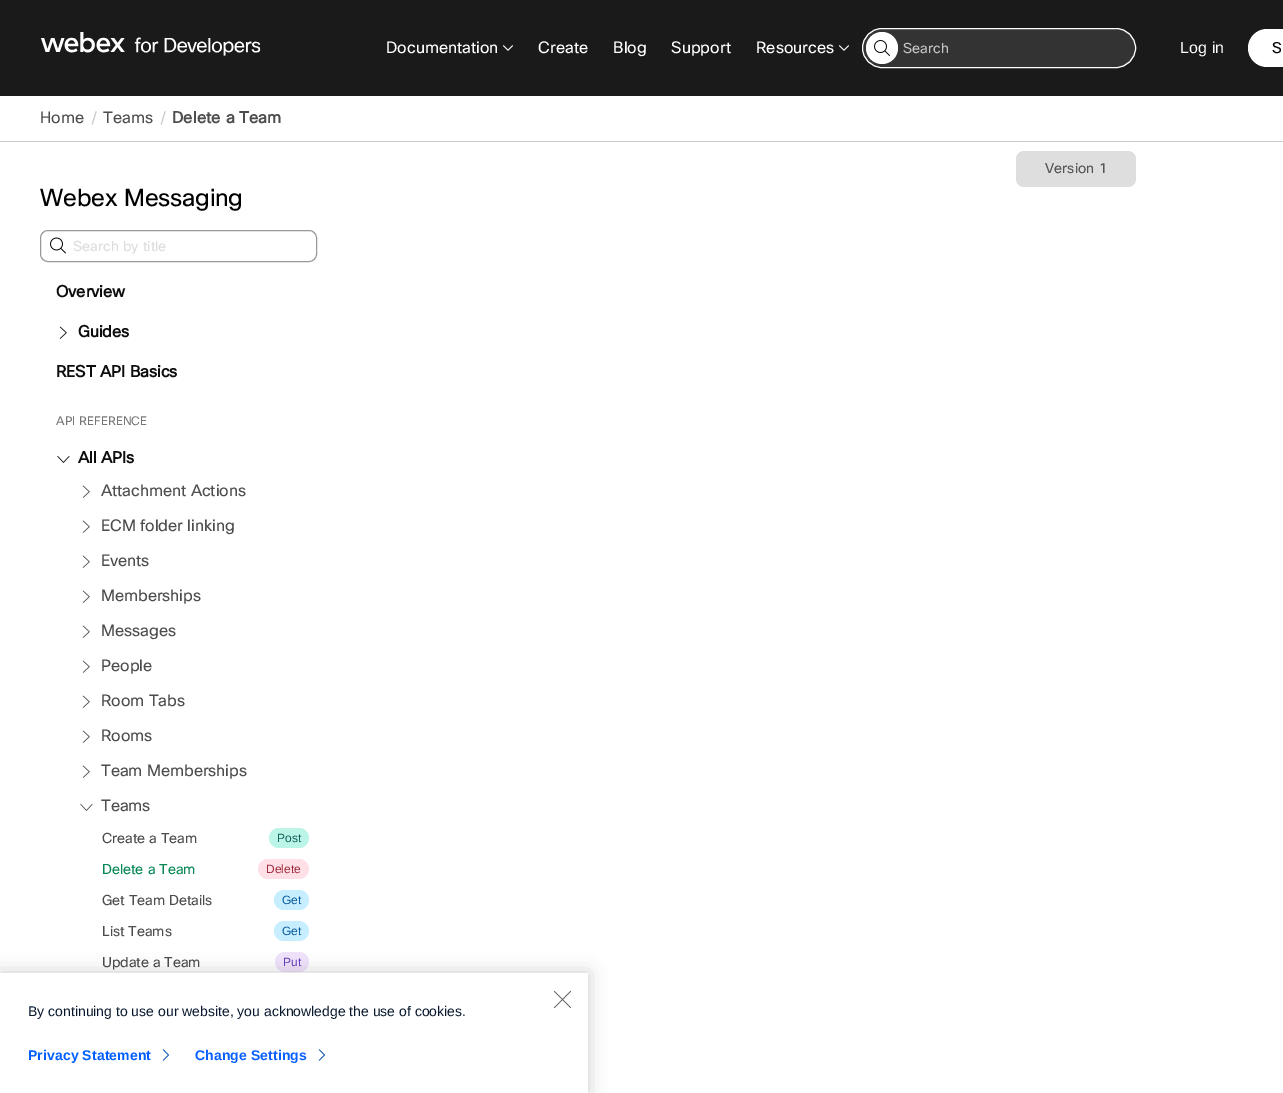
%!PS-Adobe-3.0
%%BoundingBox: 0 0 1283 1093
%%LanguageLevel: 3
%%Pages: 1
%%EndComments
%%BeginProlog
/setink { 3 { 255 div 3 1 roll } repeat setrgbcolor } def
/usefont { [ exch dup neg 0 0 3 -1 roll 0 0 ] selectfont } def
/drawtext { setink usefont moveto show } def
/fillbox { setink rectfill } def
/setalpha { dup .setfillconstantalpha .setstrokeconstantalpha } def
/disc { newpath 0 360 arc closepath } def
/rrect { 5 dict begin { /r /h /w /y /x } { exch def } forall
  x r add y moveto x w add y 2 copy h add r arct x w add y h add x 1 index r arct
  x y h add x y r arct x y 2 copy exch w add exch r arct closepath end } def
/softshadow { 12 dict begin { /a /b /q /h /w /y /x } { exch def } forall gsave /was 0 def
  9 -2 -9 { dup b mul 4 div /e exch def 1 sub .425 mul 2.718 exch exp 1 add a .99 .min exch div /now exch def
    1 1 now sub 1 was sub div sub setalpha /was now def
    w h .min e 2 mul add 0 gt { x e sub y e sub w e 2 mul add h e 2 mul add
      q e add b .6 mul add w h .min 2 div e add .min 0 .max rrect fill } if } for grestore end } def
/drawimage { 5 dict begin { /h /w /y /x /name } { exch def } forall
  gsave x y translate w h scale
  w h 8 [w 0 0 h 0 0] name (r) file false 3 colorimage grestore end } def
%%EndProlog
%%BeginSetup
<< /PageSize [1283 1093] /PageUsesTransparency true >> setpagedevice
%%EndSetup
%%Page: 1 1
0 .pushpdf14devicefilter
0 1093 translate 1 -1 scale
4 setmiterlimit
0 0 1283 1093 255 255 255 fillbox
0 0 1283 96 26 26 26 fillbox
(assets/img1.rgb) 41 32 220 24 drawimage
(Documentation) 386 53 /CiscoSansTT-Regular 16 255 255 255 drawtext
(assets/img2.rgb) 503 45 10 6 drawimage
538 53 moveto 0.1 0 (Create) ashow
613 53 moveto 0.1 0 (Blog) ashow
671 53 moveto 0.1 0 (Support) ashow
(Resources) 756 53 /CiscoSansTT-Regular 16 255 255 255 drawtext
(assets/img2.rgb) 839 45 10 6 drawimage
51 51 51 setink
862.5 28.5 273 39 19.5 rrect gsave fill grestore
255 255 255 setink
stroke
882 48 16 disc fill
(assets/img3.rgb) 874 40 16 16 drawimage
(Search) 903 53 /CiscoSansTT-Regular 14 196 196 196 drawtext
/LiberationSans-Regular 16 usefont
255 255 255 setink
1180 53 moveto 0.1 0 (Log in) ashow
1248 29 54 38 19 rrect fill
/CiscoSansTT-Regular 15 usefont
0 0 0 setink
1272 53 moveto 0.1 0 (S) ashow
0 141 1283 1 204 204 204 fillbox
/CiscoSansTT-Regular 16 usefont
77 77 77 setink
40 123 moveto 0.1 0 (Home) ashow
(/) 91 123 /CiscoSansTT-Regular 16 204 204 204 drawtext
77 77 77 setink
103 123 moveto 0.1 0 (Teams) ashow
(/) 160 123 /CiscoSansTT-Regular 16 204 204 204 drawtext
/CiscoSansTT-Bold 16 usefont
77 77 77 setink
172 123 moveto 0.1 0 (Delete a Team) ashow
222 222 222 setink
1016 151 120 36 8 rrect fill
/CiscoSansTT-Regular 14 usefont
84 84 84 setink
1045 173 moveto 0.1 0 (Version 1) ashow
/CiscoSansTT-Regular 24 usefont
0 0 0 setink
40 206 moveto -0.25 0 (Webex Messaging) ashow
153 153 153 setink
40.5 230.5 276 31 7.5 rrect stroke
(assets/img4.rgb) 50 237 16 17 drawimage
(Search by title) 73 251 /CiscoSansTT-Regular 14 220 220 220 drawtext
/CiscoSansTT-Bold 16 usefont
13 13 13 setink
56 297 moveto -0.1 0 (Overview) ashow
(assets/img5.rgb) 59 326 8 13 drawimage
78 337 moveto -0.1 0 (Guides) ashow
56 377 moveto -0.1 0 (REST API Basics) ashow
/CiscoSansTT-Regular 12 usefont
118 118 118 setink
56 425 moveto 0.1 0 (API REFERENCE) ashow
(assets/img6.rgb) 57 456 13 7 drawimage
/CiscoSansTT-Bold 16 usefont
13 13 13 setink
78 463 moveto -0.1 0 (All APIs) ashow
(assets/img7.rgb) 82 485 8 13 drawimage
/CiscoSansTT-Regular 16 usefont
77 77 77 setink
101 496 moveto -0.1 0 (Attachment Actions) ashow
(assets/img7.rgb) 82 520 8 13 drawimage
101 531 moveto -0.1 0 (ECM folder linking) ashow
(assets/img7.rgb) 82 555 8 13 drawimage
101 566 moveto -0.1 0 (Events) ashow
(assets/img7.rgb) 82 590 8 13 drawimage
101 601 moveto -0.1 0 (Memberships) ashow
(assets/img7.rgb) 82 625 8 13 drawimage
101 636 moveto -0.1 0 (Messages) ashow
(assets/img7.rgb) 82 660 8 13 drawimage
101 671 moveto -0.1 0 (People) ashow
(assets/img7.rgb) 82 695 8 13 drawimage
101 706 moveto -0.1 0 (Room Tabs) ashow
(assets/img7.rgb) 82 730 8 13 drawimage
101 741 moveto -0.1 0 (Rooms) ashow
(assets/img7.rgb) 82 765 8 13 drawimage
101 776 moveto -0.1 0 (Team Memberships) ashow
(assets/img8.rgb) 80 804 13 7 drawimage
101 811 moveto -0.1 0 (Teams) ashow
/CiscoSansTT-Regular 14 usefont
102 843 moveto -0.1 0 (Create a Team) ashow
186 245 231 setink
269 828 40 20 10 rrect fill
(Post) 277 842 /LiberationSans-Regular 12 18 97 90 drawtext
/CiscoSansTT-Regular 14 usefont
7 136 85 setink
102 874 moveto -0.1 0 (Delete a Team) ashow
255 224 231 setink
258 859 51 20 10 rrect fill
(Delete) 266 873 /LiberationSans-Regular 12 161 42 58 drawtext
/CiscoSansTT-Regular 14 usefont
77 77 77 setink
102 905 moveto -0.1 0 (Get Team Details) ashow
199 238 255 setink
274 890 35 20 10 rrect fill
(Get) 282 904 /LiberationSans-Regular 12 8 89 156 drawtext
/CiscoSansTT-Regular 14 usefont
77 77 77 setink
102 936 moveto -0.1 0 (List Teams) ashow
199 238 255 setink
274 921 35 20 10 rrect fill
(Get) 282 935 /LiberationSans-Regular 12 8 89 156 drawtext
/CiscoSansTT-Regular 14 usefont
77 77 77 setink
102 967 moveto -0.1 0 (Update a Team) ashow
240 227 252 setink
275 952 34 20 10 rrect fill
(Put) 283 966 /LiberationSans-Regular 12 100 58 189 drawtext
0 0 0 setink
0 973 588 120 0 9 0.2 softshadow
0 973 588 120 255 255 255 fillbox
(assets/img9.rgb) 553 990 19 19 drawimage
(By continuing to use our website, you acknowledge the use of cookies.) 28 1016 /LiberationSans-Regular 14 7 24 45 drawtext
/LiberationSans-Bold 14 usefont
0 96 255 setink
28 1060 moveto 0.1 0 (Privacy Statement) ashow
(assets/img10.rgb) 162 1049 7 12 drawimage
10 96 255 setink
195 1060 moveto 0.1 0 (Change Settings) ashow
(assets/img10.rgb) 318 1049 7 12 drawimage
.poppdf14devicefilter showpage
%%EOF
